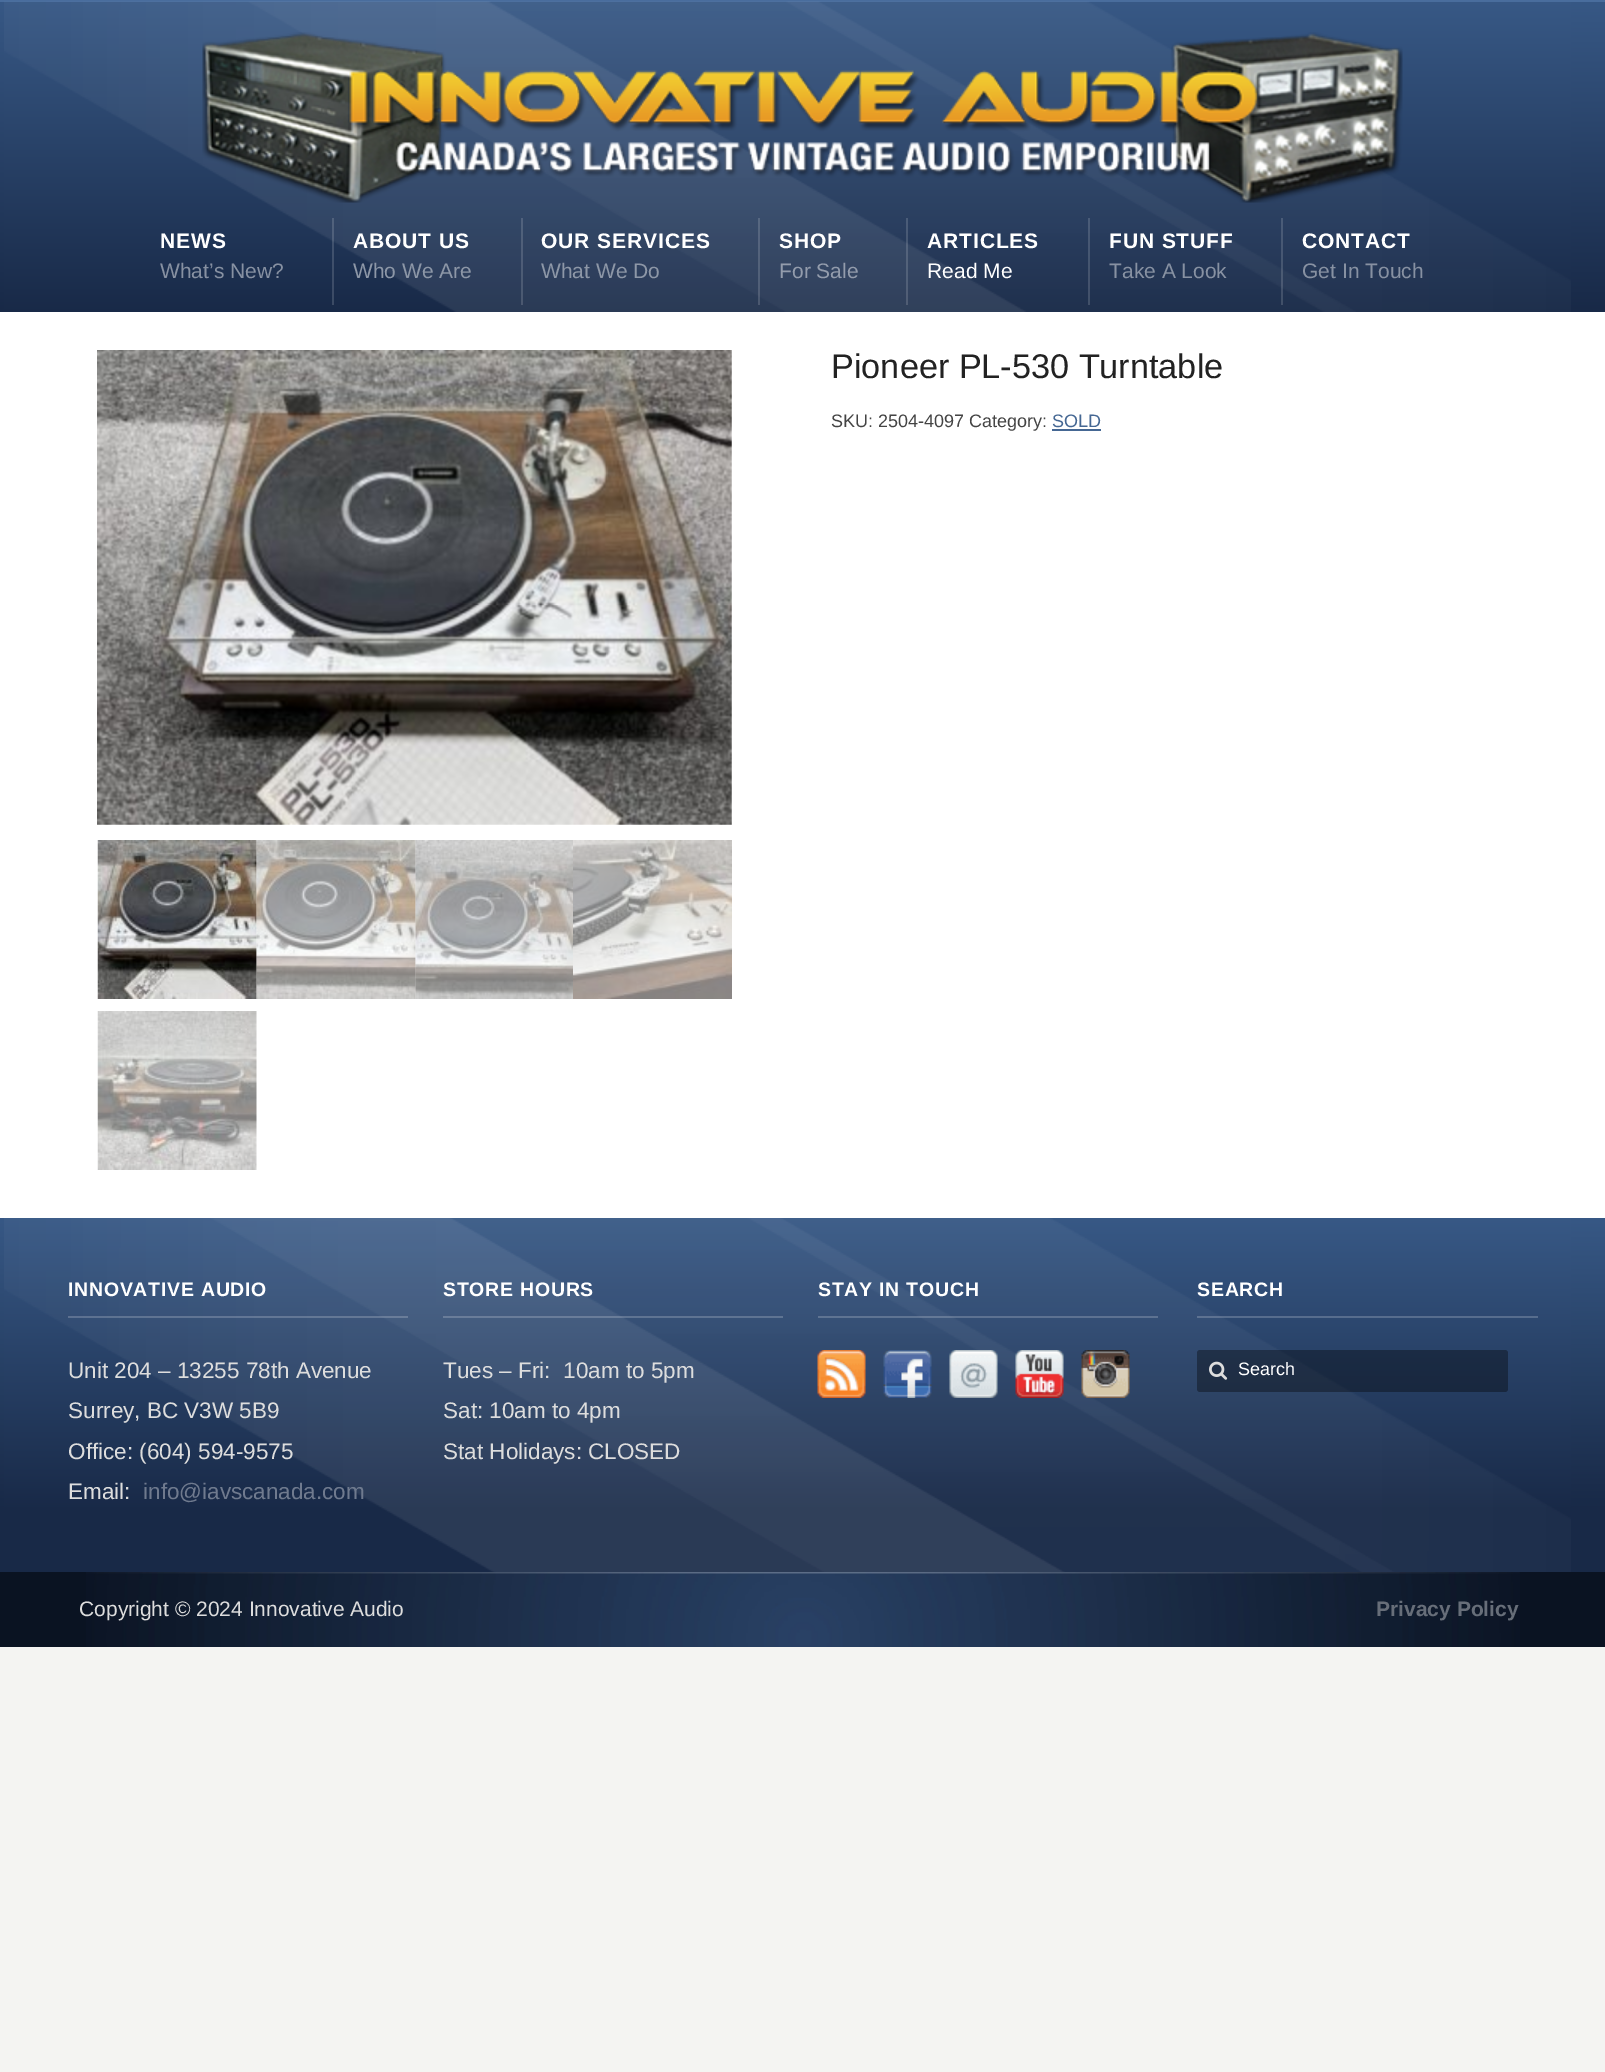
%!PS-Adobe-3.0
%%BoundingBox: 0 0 1605 2072
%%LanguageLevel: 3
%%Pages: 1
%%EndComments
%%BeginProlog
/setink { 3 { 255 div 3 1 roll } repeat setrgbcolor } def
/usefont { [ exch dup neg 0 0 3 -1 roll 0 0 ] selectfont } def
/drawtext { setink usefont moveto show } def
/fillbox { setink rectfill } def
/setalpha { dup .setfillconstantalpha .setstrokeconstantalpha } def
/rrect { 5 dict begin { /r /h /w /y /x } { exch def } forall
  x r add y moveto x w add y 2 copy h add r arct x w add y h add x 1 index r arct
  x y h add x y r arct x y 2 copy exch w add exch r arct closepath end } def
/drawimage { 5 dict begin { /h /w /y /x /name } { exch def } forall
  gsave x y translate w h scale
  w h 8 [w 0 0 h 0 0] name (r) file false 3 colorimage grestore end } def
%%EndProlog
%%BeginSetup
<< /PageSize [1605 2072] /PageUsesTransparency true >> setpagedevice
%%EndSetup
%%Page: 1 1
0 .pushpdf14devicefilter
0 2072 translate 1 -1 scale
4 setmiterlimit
0 0 1605 2072 244 244 242 fillbox
gsave 0 2 moveto 1605 2 lineto 1605 312 lineto 0 312 lineto closepath clip newpath
<< /ShadingType 2 /ColorSpace /DeviceRGB /Coords [803 1.5 803 312] /Extend [true true] /Function << /FunctionType 2 /Domain [0 1] /C0 [0.216 0.345 0.522] /C1 [0.094 0.161 0.278] /N 1 >> >> shfill grestore
gsave 140 218 moveto 142 218 lineto 142 305 lineto 140 305 lineto closepath clip newpath
<< /ShadingType 2 /ColorSpace /DeviceRGB /Coords [803 1.5 803 312] /Extend [true true] /Function << /FunctionType 2 /Domain [0 1] /C0 [0.333 0.443 0.592] /C1 [0.231 0.286 0.388] /N 1 >> >> shfill grestore
0 0 1605 2 73 109 157 fillbox
(assets/img1.rgb) 4 1 1567 311 drawimage
(assets/img2.rgb) 202 32 1201 171 drawimage
/LiberationSans-Bold 21 usefont
255 255 255 setink
160 248 moveto 0.9 0 (NEWS) ashow
(What’s New?) 160 278 /LiberationSans-Regular 21 135 145 162 drawtext
0.15 setalpha
332 218 2 87 255 255 255 fillbox
/LiberationSans-Bold 21 usefont
1 setalpha
353 248 moveto 0.9 0 (ABOUT US) ashow
(Who We Are) 353 278 /LiberationSans-Regular 21 141 151 167 drawtext
0.15 setalpha
521 218 2 87 255 255 255 fillbox
/LiberationSans-Bold 21 usefont
1 setalpha
541 248 moveto 0.9 0 (OUR SERVICES) ashow
(What We Do) 541 278 /LiberationSans-Regular 21 141 151 167 drawtext
0.15 setalpha
758 218 2 87 255 255 255 fillbox
/LiberationSans-Bold 21 usefont
1 setalpha
779 248 moveto 0.9 0 (SHOP) ashow
(For Sale) 779 278 /LiberationSans-Regular 21 147 156 172 drawtext
0.15 setalpha
906 218 2 87 255 255 255 fillbox
/LiberationSans-Bold 21 usefont
1 setalpha
927 248 moveto 0.9 0 (ARTICLES) ashow
(Read Me) 927 278 /LiberationSans-Regular 21 255 255 255 drawtext
0.15 setalpha
1088 218 2 87 255 255 255 fillbox
/LiberationSans-Bold 21 usefont
1 setalpha
1109 248 moveto 0.9 0 (FUN STUFF) ashow
(Take A Look) 1109 278 /LiberationSans-Regular 21 135 145 162 drawtext
0.15 setalpha
1281 218 2 87 255 255 255 fillbox
/LiberationSans-Bold 21 usefont
1 setalpha
1302 248 moveto 0.9 0 (CONTACT) ashow
(Get In Touch) 1302 278 /LiberationSans-Regular 21 135 145 162 drawtext
0 312 1605 906 255 255 255 fillbox
(assets/img3.rgb) 97 350 635 475 drawimage
(assets/img4.rgb) 97 840 160 159 drawimage
(assets/img5.rgb) 256 840 160 159 drawimage
(assets/img6.rgb) 415 840 158 159 drawimage
(assets/img7.rgb) 573 840 159 159 drawimage
(assets/img8.rgb) 97 1011 160 159 drawimage
(Pioneer PL-530 Turntable) 831 378 /LiberationSans-Regular 34.25 34 34 34 drawtext
(SKU: 2504-4097 Category:) 831 427 /LiberationSans-Regular 18 68 68 68 drawtext
(SOLD) 1052 427 /LiberationSans-Regular 18 69 103 147 drawtext
1052 429 49 2 69 103 147 fillbox
gsave 0 1218 moveto 1605 1218 lineto 1605 1572 lineto 0 1572 lineto closepath clip newpath
<< /ShadingType 2 /ColorSpace /DeviceRGB /Coords [803 1218 803 1647] /Extend [true true] /Function << /FunctionType 3 /Domain [0 1] /Functions [<< /FunctionType 2 /Domain [0 1] /C0 [0.216 0.345 0.522] /C1 [0.094 0.161 0.278] /N 1 >> << /FunctionType 2 /Domain [0 1] /C0 [0.094 0.161 0.278] /C1 [0.094 0.161 0.278] /N 1 >>] /Bounds [0.68] /Encode [0 1 0 1] >> >> shfill grestore
(assets/img9.rgb) 4 1218 1567 354 drawimage
0.2 setalpha
68 1316 340 2 255 255 255 fillbox
/LiberationSans-Bold 19.5 usefont
1 setalpha
68 1296 moveto 0.75 0 (INNOVATIVE AUDIO) ashow
(Unit 204 – 13255 78th Avenue) 68 1378 /LiberationSans-Regular 22.5 221 221 221 drawtext
(Surrey, BC V3W 5B9) 68 1418 /LiberationSans-Regular 22.5 221 221 221 drawtext
(Office: \(604\) 594-9575) 68 1459 /LiberationSans-Regular 22.5 221 221 221 drawtext
(Email:) 68 1499 /LiberationSans-Regular 22.5 221 221 221 drawtext
(info@iavscanada.com) 143 1499 /LiberationSans-Regular 22.5 111 122 142 drawtext
0.2 setalpha
443 1316 340 2 255 255 255 fillbox
/LiberationSans-Bold 19.5 usefont
1 setalpha
443 1296 moveto 0.75 0 (STORE HOURS) ashow
(Tues – Fri:  10am to 5pm) 443 1378 /LiberationSans-Regular 22.5 221 221 221 drawtext
(Sat: 10am to 4pm) 443 1418 /LiberationSans-Regular 22.5 221 221 221 drawtext
(Stat Holidays: CLOSED) 443 1459 /LiberationSans-Regular 22.5 221 221 221 drawtext
0.2 setalpha
818 1316 340 2 255 255 255 fillbox
/LiberationSans-Bold 19.5 usefont
1 setalpha
818 1296 moveto 0.75 0 (STAY IN TOUCH) ashow
(assets/img10.rgb) 817 1350 49 48 drawimage
(assets/img11.rgb) 883 1350 49 48 drawimage
(assets/img12.rgb) 949 1350 49 48 drawimage
(assets/img13.rgb) 1015 1350 49 48 drawimage
(assets/img14.rgb) 1081 1350 49 48 drawimage
0.2 setalpha
1197 1316 341 2 255 255 255 fillbox
1 setalpha
1197 1296 moveto 0.75 0 (SEARCH) ashow
0.35 setalpha
0 0 0 setink
1197 1350 311 42 3 rrect fill
1 setalpha
(assets/img15.rgb) 1209 1361 19 19 drawimage
(Search) 1238 1375 /LiberationSans-Regular 18 255 255 255 drawtext
0 1572 1605 75 10 19 34 fillbox
(assets/img16.rgb) 86 1572 1434 75 drawimage
(Copyright © 2024 Innovative Audio) 79 1616 /LiberationSans-Regular 21 221 221 221 drawtext
(Privacy Policy) 1376 1616 /LiberationSans-Bold 21 103 110 121 drawtext
.poppdf14devicefilter showpage
%%EOF
